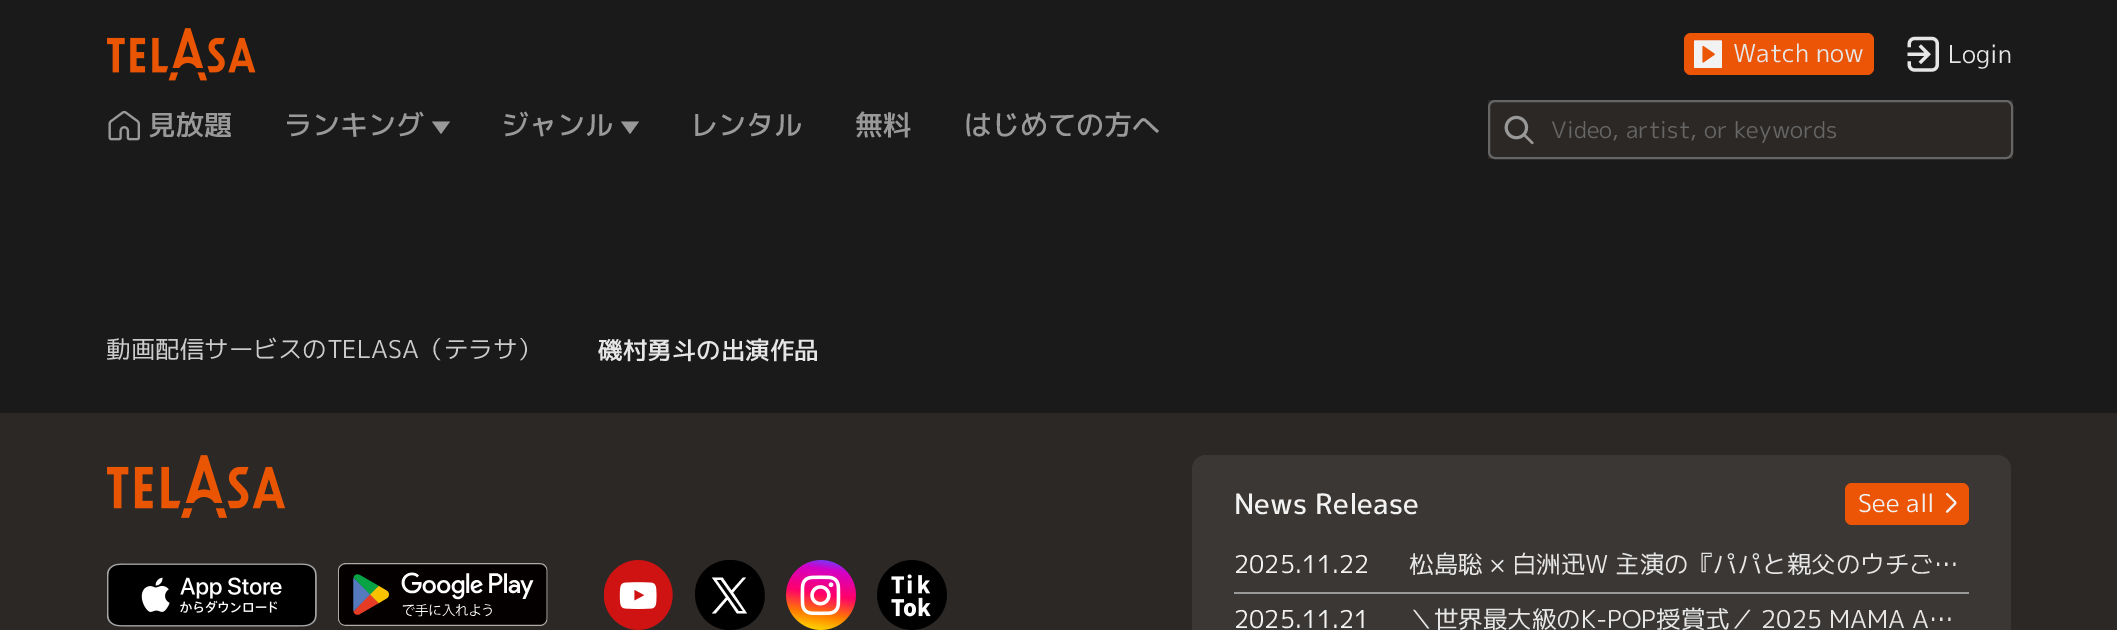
%!PS-Adobe-3.0
%%BoundingBox: 0 0 2117 630
%%LanguageLevel: 3
%%Pages: 1
%%EndComments
%%BeginProlog
/setink { 3 { 255 div 3 1 roll } repeat setrgbcolor } def
/usefont { [ exch dup neg 0 0 3 -1 roll 0 0 ] selectfont } def
/drawtext { setink usefont moveto show } def
/fillbox { setink rectfill } def
/rrect { 5 dict begin { /r /h /w /y /x } { exch def } forall
  x r add y moveto x w add y 2 copy h add r arct x w add y h add x 1 index r arct
  x y h add x y r arct x y 2 copy exch w add exch r arct closepath end } def
/drawimage { 5 dict begin { /h /w /y /x /name } { exch def } forall
  gsave x y translate w h scale
  w h 8 [w 0 0 h 0 0] name (r) file false 3 colorimage grestore end } def
%%EndProlog
%%BeginSetup
<< /PageSize [2117 630] >> setpagedevice
%%EndSetup
%%Page: 1 1
0 630 translate 1 -1 scale
4 setmiterlimit
0 0 2117 630 26 26 26 fillbox
(assets/img1.rgb) 107 28 149 53 drawimage
235 85 5 setink
1684 33 190 42 7 rrect fill
(assets/img2.rgb) 1694 40 28 28 drawimage
(Watch now) 1733 62 /MPLUS1p-Regular 24.5 230 230 230 drawtext
(assets/img3.rgb) 1907 36 32 36 drawimage
(Login) 1948 63 /MPLUS1p-Regular 24.5 230 230 230 drawtext
(assets/img4.rgb) 108 110 32 31 drawimage
(見放題) 148 135 /MPLUS1p-Medium 28 153 153 153 drawtext
(ランキング) 284 135 /MPLUS1p-Medium 28 153 153 153 drawtext
432 121.5 moveto 441 134 lineto 450 121.5 lineto closepath eofill
(ジャンル) 501 135 /MPLUS1p-Medium 28 153 153 153 drawtext
621 121.5 moveto 630 134 lineto 639 121.5 lineto closepath eofill
(レンタル) 690 135 /MPLUS1p-Medium 28 153 153 153 drawtext
(無料) 855 135 /MPLUS1p-Medium 28 153 153 153 drawtext
(はじめての方へ) 964 135 /MPLUS1p-Medium 28 153 153 153 drawtext
1488 100 525 59 43 40 38 fillbox
(assets/img5.rgb) 1504 115 30 30 drawimage
102 102 102 setink
2 setlinewidth
1489 101 523 57 6 rrect stroke
(Video, artist, or keywords) 1551 138 /MPLUS1p-Regular 22.75 102 102 102 drawtext
(動画配信サービスのTELASA（テラサ）) 106 358 /MPLUS1p-Regular 24.5 204 204 204 drawtext
(磯村勇斗の出演作品) 598 359 /MPLUS1p-Medium 24.5 230 230 230 drawtext
0 413 2117 217 43 40 38 fillbox
(assets/img6.rgb) 107 455 178 63 drawimage
(assets/img7.rgb) 107 563 210 64 drawimage
(assets/img8.rgb) 338 563 210 63 drawimage
(assets/img9.rgb) 604 560 69 70 drawimage
0 0 0 setink
730 560 moveto 765 560 778 607 748 625 curveto 743 628 736 630 730 630 curveto 696 630 682 585 710 566 curveto 716 562 723 560 730 560 curveto closepath fill
(assets/img10.rgb) 786 560 70 70 drawimage
(assets/img11.rgb) 877 560 70 70 drawimage
255 255 255 setink
733 592.5 moveto 746 577.5 lineto 743 577.5 lineto 731.5 590.5 lineto 722.5 577.5 lineto 712 577.5 lineto 726 597.5 lineto 712 613.5 lineto 715.5 613.5 lineto 727.5 599.5 lineto 737 613.5 lineto 747 613.5 lineto closepath 729 597.5 moveto 716.5 580 lineto 721 580 lineto 743 611 lineto 738.5 611 lineto closepath fill
58 55 53 setink
1192 455 819 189 14 rrect fill
(News Release) 1234 514 /MPLUS1p-Medium 28 242 242 242 drawtext
235 85 5 setink
1845 483 124 42 7 rrect fill
(See all) 1858 512 /MPLUS1p-Regular 24.5 242 242 242 drawtext
(assets/img12.rgb) 1946 493 11 20 drawimage
1234 592 735 2 153 153 153 fillbox
(2025.11.22) 1234 573 /MPLUS1p-Regular 24.5 242 242 242 drawtext
(松島聡 × 白洲迅W 主演の『パパと親父のウチご…) 1409 573 /MPLUS1p-Regular 24.5 230 230 230 drawtext
(2025.11.21) 1234 628 /MPLUS1p-Regular 24.5 242 242 242 drawtext
(＼世界最大級のK-POP授賞式／ 2025 MAMA A…) 1409 628 /MPLUS1p-Regular 24.5 230 230 230 drawtext
showpage
%%EOF
